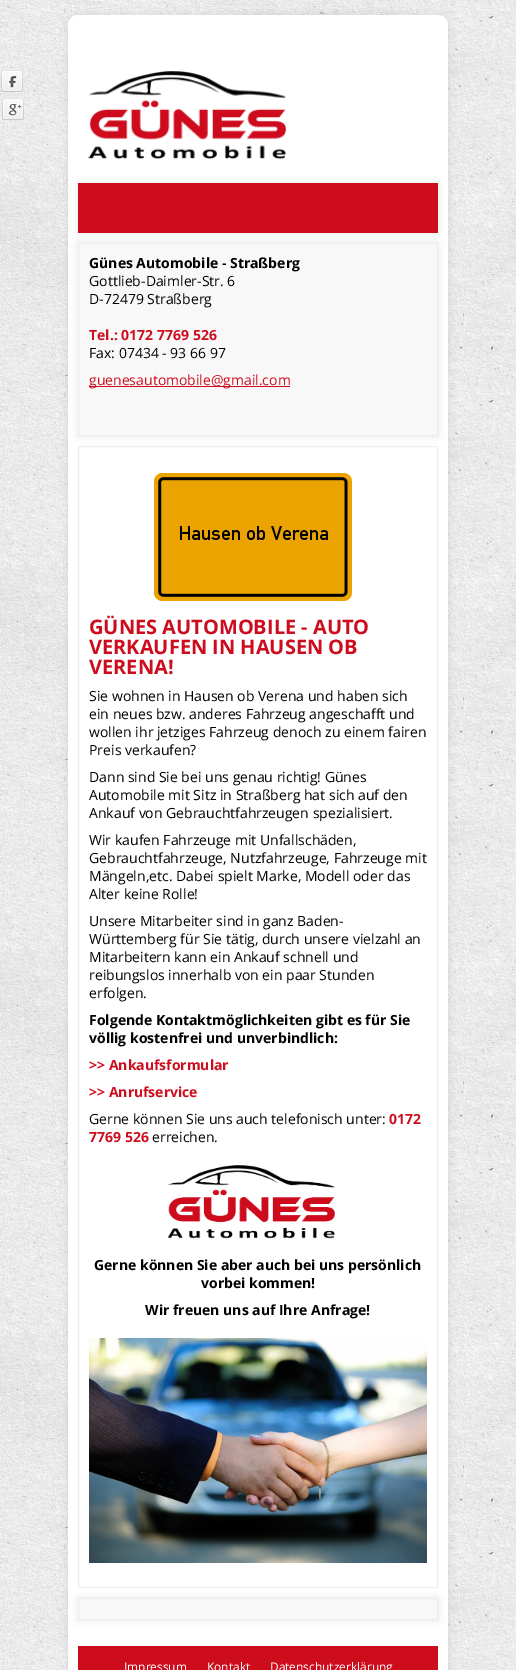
%!PS-Adobe-3.0
%%BoundingBox: 0 0 516 1670
%%LanguageLevel: 3
%%Pages: 1
%%EndComments
%%BeginProlog
/setink { 3 { 255 div 3 1 roll } repeat setrgbcolor } def
/usefont { [ exch dup neg 0 0 3 -1 roll 0 0 ] selectfont } def
/drawtext { setink usefont moveto show } def
/fillbox { setink rectfill } def
/setalpha { dup .setfillconstantalpha .setstrokeconstantalpha } def
/rrect { 5 dict begin { /r /h /w /y /x } { exch def } forall
  x r add y moveto x w add y 2 copy h add r arct x w add y h add x 1 index r arct
  x y h add x y r arct x y 2 copy exch w add exch r arct closepath end } def
/softshadow { 12 dict begin { /a /b /q /h /w /y /x } { exch def } forall gsave /was 0 def
  9 -2 -9 { dup b mul 4 div /e exch def 1 sub .425 mul 2.718 exch exp 1 add a .99 .min exch div /now exch def
    1 1 now sub 1 was sub div sub setalpha /was now def
    w h .min e 2 mul add 0 gt { x e sub y e sub w e 2 mul add h e 2 mul add
      q e add b .6 mul add w h .min 2 div e add .min 0 .max rrect fill } if } for grestore end } def
/drawimage { 5 dict begin { /h /w /y /x /name } { exch def } forall
  gsave x y translate w h scale
  w h 8 [w 0 0 h 0 0] name (r) file false 3 colorimage grestore end } def
%%EndProlog
%%BeginSetup
<< /PageSize [516 1670] /PageUsesTransparency true >> setpagedevice
%%EndSetup
%%Page: 1 1
0 .pushpdf14devicefilter
0 1670 translate 1 -1 scale
4 setmiterlimit
0 0 516 1670 255 255 255 fillbox
(assets/img1.rgb) 0 0 516 1670 drawimage
(assets/img2.rgb) 1 70 22 22 drawimage
(assets/img3.rgb) 2 98 22 22 drawimage
0 0 0 setink
68 15 380 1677 10 4 0.1 softshadow
255 255 255 setink
78 15 moveto 438 15 lineto 443.5 15 448 19.5 448 25 curveto 448 183 lineto 68 183 lineto 68 25 lineto 68 19.5 72.5 15 78 15 curveto closepath fill
(assets/img4.rgb) 88 71 198 88 drawimage
68 183 380 1487 255 255 255 fillbox
0 0 0 setink
78 243 360 193 0 4 0.1 softshadow
249 248 248 setink
78.5 243.5 moveto 437.5 243.5 lineto 437.5 435.5 lineto 78.5 435.5 lineto closepath gsave fill grestore
238 238 238 setink
stroke
0 0 0 setink
78 183 360 50 3 4 0.1 softshadow
78 183 360 50 205 13 28 fillbox
(Günes Automobile - Straßberg) 89 268 /OpenSans-Bold 14 0 0 0 drawtext
(Gottlieb-Daimler-Str. 6) 89 286 /OpenSans-Regular 14 0 0 0 drawtext
(D-72479 Straßberg) 89 304 /OpenSans-Regular 14 0 0 0 drawtext
(Tel.: 0172 7769 526) 89 340 /OpenSans-Bold 14 205 13 29 drawtext
(Fax: 07434 - 93 66 97) 89 358 /OpenSans-Regular 14 0 0 0 drawtext
89 386 201 1 205 13 28 fillbox
(guenesautomobile@gmail.com) 89 385 /OpenSans-Regular 14 205 13 29 drawtext
238 238 238 setink
78.5 446.5 359 1141 rectstroke
(assets/img5.rgb) 154 473 198 128 drawimage
(GÜNES AUTOMOBILE - AUTO) 89 634 /OpenSans-Bold 20 205 13 29 drawtext
(VERKAUFEN IN HAUSEN OB) 89 654 /OpenSans-Bold 20 205 13 29 drawtext
(VERENA!) 89 674 /OpenSans-Bold 20 205 13 29 drawtext
(Sie wohnen in Hausen ob Verena und haben sich) 89 701 /OpenSans-Regular 14 0 0 0 drawtext
(ein neues bzw. anderes Fahrzeug angeschafft und) 89 719 /OpenSans-Regular 14 0 0 0 drawtext
(wollen ihr jetziges Fahrzeug denoch zu einem fairen) 89 737 /OpenSans-Regular 14 0 0 0 drawtext
(Preis verkaufen?) 89 755 /OpenSans-Regular 14 0 0 0 drawtext
(Dann sind Sie bei uns genau richtig! Günes) 89 782 /OpenSans-Regular 14 0 0 0 drawtext
(Automobile mit Sitz in Straßberg hat sich auf den) 89 800 /OpenSans-Regular 14 0 0 0 drawtext
(Ankauf von Gebrauchtfahrzeugen spezialisiert.) 89 818 /OpenSans-Regular 14 0 0 0 drawtext
(Wir kaufen Fahrzeuge mit Unfallschäden,) 89 845 /OpenSans-Regular 14 0 0 0 drawtext
(Gebrauchtfahrzeuge, Nutzfahrzeuge, Fahrzeuge mit) 89 863 /OpenSans-Regular 14 0 0 0 drawtext
(Mängeln,etc. Dabei spielt Marke, Modell oder das) 89 881 /OpenSans-Regular 14 0 0 0 drawtext
(Alter keine Rolle!) 89 899 /OpenSans-Regular 14 0 0 0 drawtext
(Unsere Mitarbeiter sind in ganz Baden-) 89 926 /OpenSans-Regular 14 0 0 0 drawtext
(Württemberg für Sie tätig, durch unsere vielzahl an) 89 944 /OpenSans-Regular 14 0 0 0 drawtext
(Mitarbeitern kann ein Ankauf schnell und) 89 962 /OpenSans-Regular 14 0 0 0 drawtext
(reibungslos innerhalb von ein paar Stunden) 89 980 /OpenSans-Regular 14 0 0 0 drawtext
(erfolgen.) 89 998 /OpenSans-Regular 14 0 0 0 drawtext
(Folgende Kontaktmöglichkeiten gibt es für Sie) 89 1025 /OpenSans-Bold 14 0 0 0 drawtext
(völlig kostenfrei und unverbindlich:) 89 1043 /OpenSans-Bold 14 0 0 0 drawtext
(>> Ankaufsformular) 89 1070 /OpenSans-Bold 14 205 13 29 drawtext
(>> Anrufservice) 89 1097 /OpenSans-Bold 14 205 13 29 drawtext
(Gerne können Sie uns auch telefonisch unter:) 89 1124 /OpenSans-Regular 14 0 0 0 drawtext
(0172) 389 1124 /OpenSans-Bold 14 205 13 29 drawtext
(7769 526) 89 1142 /OpenSans-Bold 14 205 13 29 drawtext
(erreichen.) 152 1142 /OpenSans-Regular 14 0 0 0 drawtext
(assets/img6.rgb) 167 1165 168 74 drawimage
(Gerne können Sie aber auch bei uns persönlich) 94 1270 /OpenSans-Bold 14 0 0 0 drawtext
(vorbei kommen!) 201 1288 /OpenSans-Bold 14 0 0 0 drawtext
(Wir freuen uns auf Ihre Anfrage!) 145 1315 /OpenSans-Bold 14 0 0 0 drawtext
(assets/img7.rgb) 89 1338 338 225 drawimage
78 1598 360 22 0 4 0.1 softshadow
249 248 248 setink
78.5 1598.5 moveto 437.5 1598.5 lineto 437.5 1619.5 lineto 78.5 1619.5 lineto closepath gsave fill grestore
238 238 238 setink
stroke
78 1646 360 24 205 13 28 fillbox
(Impressum) 124 1671 /OpenSans-Regular 11.9 255 255 255 drawtext
(Kontakt) 207 1671 /OpenSans-Regular 11.9 255 255 255 drawtext
(Datenschutzerklärung) 270 1671 /OpenSans-Regular 11.9 255 255 255 drawtext
.poppdf14devicefilter showpage
%%EOF
